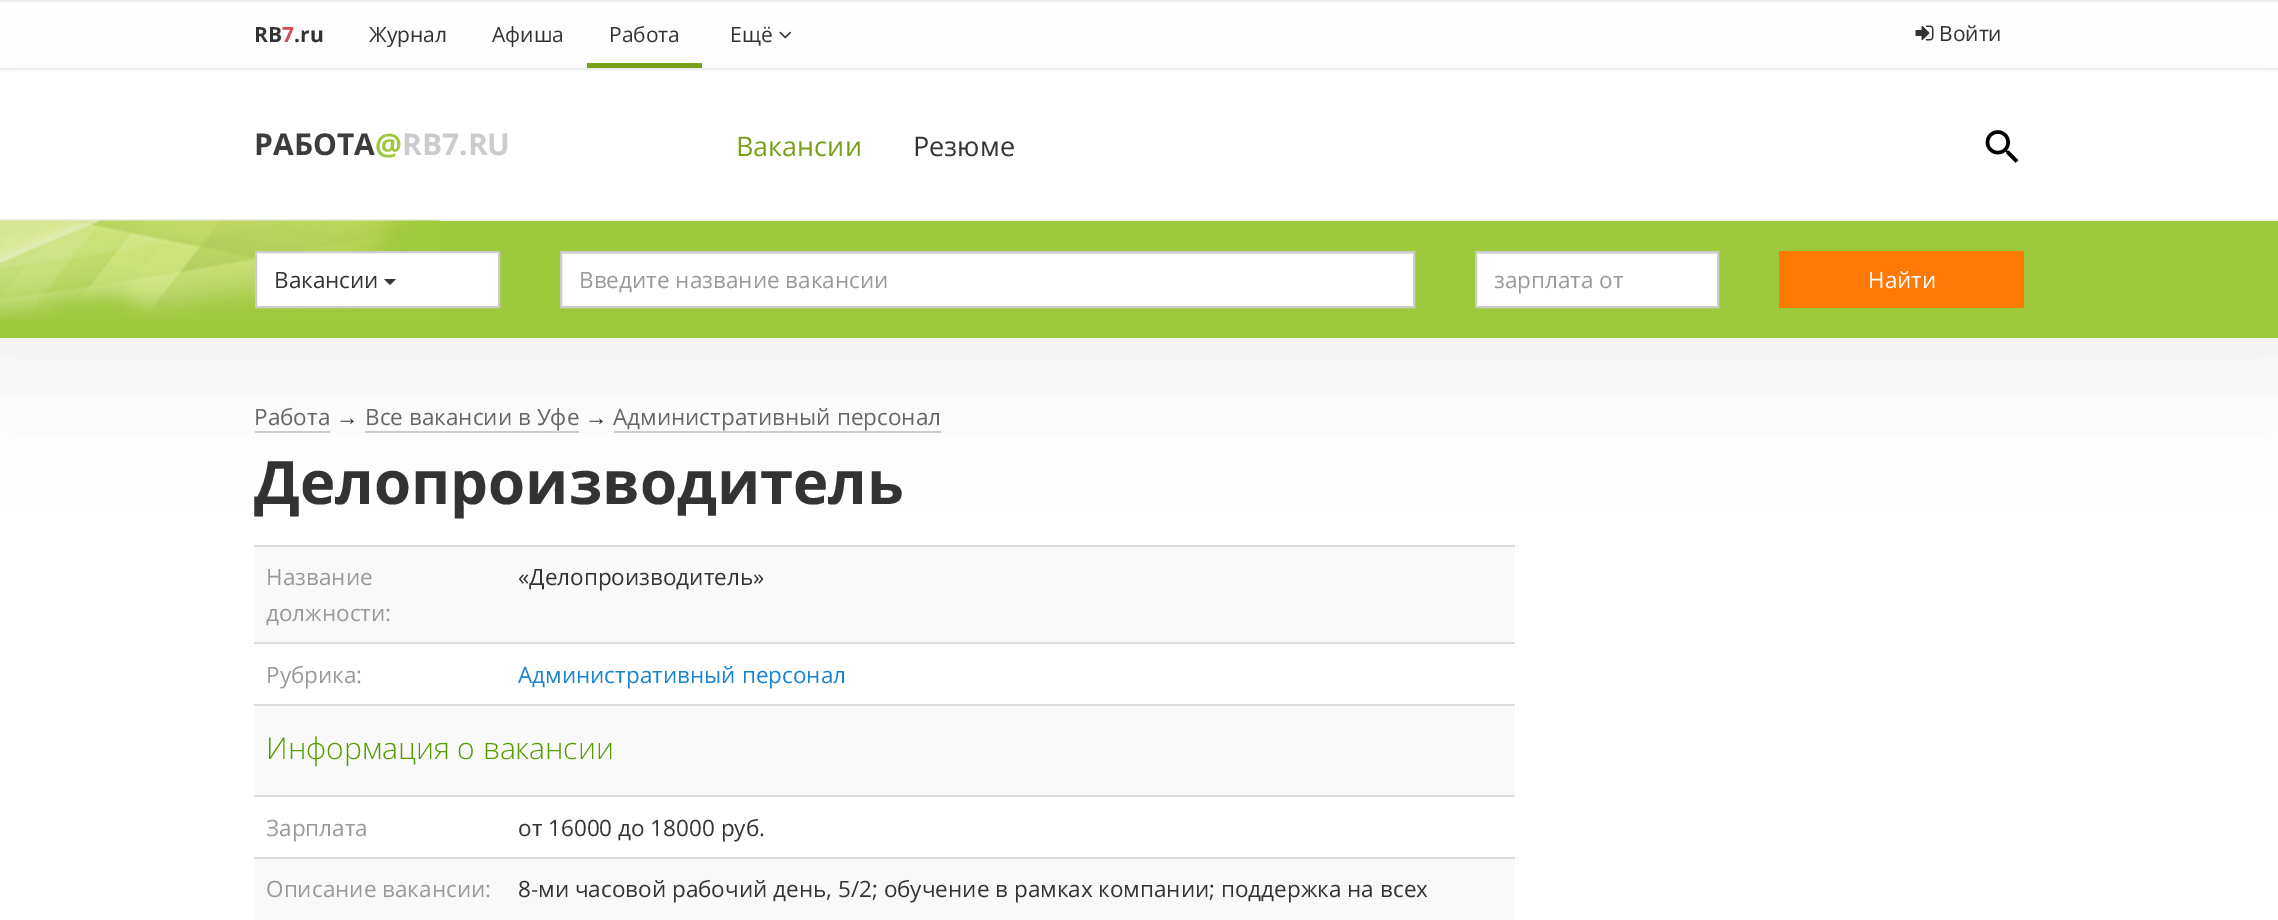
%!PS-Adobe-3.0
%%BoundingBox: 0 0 2278 920
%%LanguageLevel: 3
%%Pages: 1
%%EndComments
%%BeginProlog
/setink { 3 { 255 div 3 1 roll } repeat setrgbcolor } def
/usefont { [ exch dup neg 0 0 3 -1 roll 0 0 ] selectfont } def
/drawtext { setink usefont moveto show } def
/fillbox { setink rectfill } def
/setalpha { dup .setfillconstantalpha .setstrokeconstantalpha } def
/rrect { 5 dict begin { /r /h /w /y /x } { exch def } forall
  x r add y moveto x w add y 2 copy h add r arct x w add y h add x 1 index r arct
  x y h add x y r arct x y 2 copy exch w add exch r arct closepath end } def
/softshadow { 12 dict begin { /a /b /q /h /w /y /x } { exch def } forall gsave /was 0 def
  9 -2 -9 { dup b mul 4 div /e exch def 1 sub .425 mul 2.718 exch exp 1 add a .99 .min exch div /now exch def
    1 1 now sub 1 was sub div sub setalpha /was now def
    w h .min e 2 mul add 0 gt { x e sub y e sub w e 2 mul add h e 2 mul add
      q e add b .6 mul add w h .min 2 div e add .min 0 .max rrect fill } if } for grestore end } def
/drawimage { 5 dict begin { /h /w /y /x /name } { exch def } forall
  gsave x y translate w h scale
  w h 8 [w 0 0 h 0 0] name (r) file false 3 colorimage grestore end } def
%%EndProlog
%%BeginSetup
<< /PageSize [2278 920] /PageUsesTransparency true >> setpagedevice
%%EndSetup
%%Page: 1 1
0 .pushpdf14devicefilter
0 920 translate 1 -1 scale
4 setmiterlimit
0 0 2278 920 255 255 255 fillbox
0 0 2278 2 238 238 238 fillbox
0 0 0 setink
-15 158 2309 183 0 75 0.08 softshadow
(RB) 254 42 /OpenSans-Bold 21 51 51 51 drawtext
(7) 282 42 /OpenSans-Bold 21 210 76 86 drawtext
(.ru) 294 42 /OpenSans-Bold 21 51 51 51 drawtext
(Журнал) 369 42 /OpenSans-Regular 21 51 51 51 drawtext
(Афиша) 492 42 /OpenSans-Regular 21 51 51 51 drawtext
587 63 115 5 119 160 24 fillbox
(Работа) 609 42 /OpenSans-Regular 21 51 51 51 drawtext
(Ещё) 730 42 /OpenSans-Regular 21 51 51 51 drawtext
(assets/img1.rgb) 779 31 13 8 drawimage
(assets/img2.rgb) 1915 25 19 16 drawimage
(Войти) 1939 41 /OpenSans-Regular 21 51 51 51 drawtext
0 72 2278 147 255 255 255 fillbox
0 68 2278 2 237 237 237 fillbox
0 219 2278 2 237 237 237 fillbox
(РАБОТА) 254 155 /OpenSans-Bold 30 60 60 60 drawtext
(@) 375 155 /OpenSans-Bold 30 159 201 61 drawtext
(RB7.RU) 402 155 /OpenSans-Bold 30 204 204 204 drawtext
(Вакансии) 736 156 /OpenSans-Regular 27 119 160 24 drawtext
(Резюме) 913 156 /OpenSans-Regular 27 51 51 51 drawtext
(assets/img3.rgb) 1985 130 34 33 drawimage
0 221 2278 117 159 201 61 fillbox
(assets/img4.rgb) 0 220 440 100 drawimage
255 255 255 setink
256 252 moveto 499 252 lineto 499 307 lineto 256 307 lineto closepath gsave fill grestore
204 204 204 setink
2 setlinewidth
stroke
(Вакансии) 274 288 /OpenSans-Regular 22.5 51 51 51 drawtext
384 279 moveto 396 279 lineto 390 285 lineto closepath fill
562 254 851 52 255 255 255 fillbox
561 253 852 1 236 236 236 fillbox
204 204 204 setink
561 252 853 55 rectstroke
(Введите название вакансии) 579 288 /OpenSans-Regular 22.5 153 153 153 drawtext
1477 254 240 52 255 255 255 fillbox
1476 253 242 1 236 236 236 fillbox
204 204 204 setink
1476 252 242 55 rectstroke
(зарплата от) 1494 288 /OpenSans-Regular 22.5 153 153 153 drawtext
1779 251 245 57 255 121 7 fillbox
(Найти) 1868 288 /OpenSans-Regular 22.5 255 255 255 drawtext
(Работа) 254 425 /OpenSans-Regular 22.5 102 102 102 drawtext
255 431 75 2 204 204 204 fillbox
(→) 336 425 /LiberationSans-Regular 22.5 51 51 51 drawtext
(Все вакансии в Уфе) 365 425 /OpenSans-Regular 22.5 102 102 102 drawtext
365 431 214 2 204 204 204 fillbox
(→) 585 425 /LiberationSans-Regular 22.5 51 51 51 drawtext
(Административный персонал) 613 425 /OpenSans-Regular 22.5 102 102 102 drawtext
614 431 327 2 204 204 204 fillbox
(Делопроизводитель) 254 504 /OpenSans-Bold 60 51 51 51 drawtext
255 547 1260 95 249 249 249 fillbox
(Название) 266 585 /OpenSans-Regular 22.5 153 153 153 drawtext
(должности:) 266 621 /OpenSans-Regular 22.5 153 153 153 drawtext
254 545 1261 2 221 221 221 fillbox
(«Делопроизводитель») 518 585 /OpenSans-Regular 22.5 51 51 51 drawtext
(Рубрика:) 266 683 /OpenSans-Regular 22.5 153 153 153 drawtext
254 642 1261 2 221 221 221 fillbox
(Административный персонал) 518 683 /OpenSans-Regular 22.5 26 133 206 drawtext
255 706 1260 89 249 249 249 fillbox
254 704 1261 2 221 221 221 fillbox
(Информация о вакансии) 266 759 /OpenSans-Light 30 84 156 0 drawtext
(Зарплата) 266 836 /OpenSans-Regular 22.5 153 153 153 drawtext
254 795 1261 2 221 221 221 fillbox
(от 16000 до 18000 руб.) 518 836 /OpenSans-Regular 22.5 51 51 51 drawtext
255 859 1260 61 249 249 249 fillbox
(Описание вакансии:) 266 897 /OpenSans-Regular 22.5 153 153 153 drawtext
254 857 1261 2 221 221 221 fillbox
(8-ми часовой рабочий день, 5/2; обучение в рамках компании; поддержка на всех) 518 897 /OpenSans-Regular 22.5 51 51 51 drawtext
.poppdf14devicefilter showpage
%%EOF
